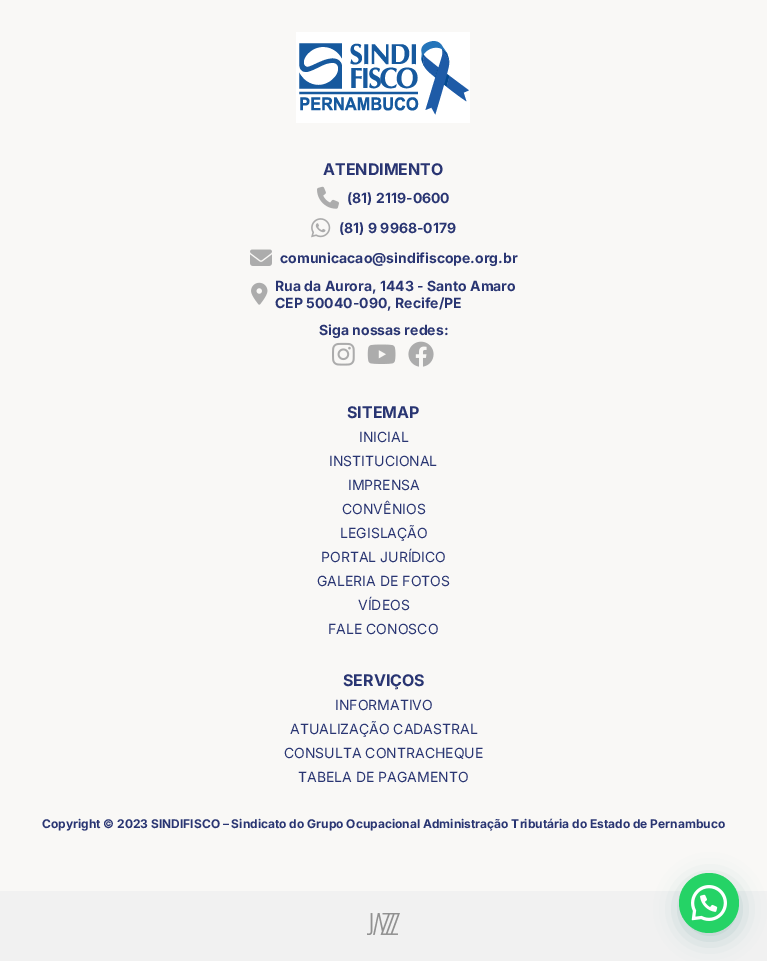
%!PS-Adobe-3.0
%%BoundingBox: 0 0 767 961
%%LanguageLevel: 3
%%Pages: 1
%%EndComments
%%BeginProlog
/setink { 3 { 255 div 3 1 roll } repeat setrgbcolor } def
/usefont { [ exch dup neg 0 0 3 -1 roll 0 0 ] selectfont } def
/drawtext { setink usefont moveto show } def
/fillbox { setink rectfill } def
/setalpha { dup .setfillconstantalpha .setstrokeconstantalpha } def
/disc { newpath 0 360 arc closepath } def
/rrect { 5 dict begin { /r /h /w /y /x } { exch def } forall
  x r add y moveto x w add y 2 copy h add r arct x w add y h add x 1 index r arct
  x y h add x y r arct x y 2 copy exch w add exch r arct closepath end } def
/softshadow { 12 dict begin { /a /b /q /h /w /y /x } { exch def } forall gsave /was 0 def
  9 -2 -9 { dup b mul 4 div /e exch def 1 sub .425 mul 2.718 exch exp 1 add a .99 .min exch div /now exch def
    1 1 now sub 1 was sub div sub setalpha /was now def
    w h .min e 2 mul add 0 gt { x e sub y e sub w e 2 mul add h e 2 mul add
      q e add b .6 mul add w h .min 2 div e add .min 0 .max rrect fill } if } for grestore end } def
/drawimage { 5 dict begin { /h /w /y /x /name } { exch def } forall
  gsave x y translate w h scale
  w h 8 [w 0 0 h 0 0] name (r) file false 3 colorimage grestore end } def
%%EndProlog
%%BeginSetup
<< /PageSize [767 961] /PageUsesTransparency true >> setpagedevice
%%EndSetup
%%Page: 1 1
0 .pushpdf14devicefilter
0 961 translate 1 -1 scale
4 setmiterlimit
0 0 767 961 249 248 246 fillbox
(assets/img1.rgb) 296 32 174 91 drawimage
(ATENDIMENTO) 323 175 /Inter-Bold 16 41 53 114 drawtext
(assets/img2.rgb) 317 186 22 23 drawimage
(\(81\) 2119-0600) 347 203 /Inter-Bold 14 41 53 114 drawtext
(assets/img3.rgb) 311 218 20 20 drawimage
(\(81\) 9 9968-0179) 339 233 /Inter-Bold 14 41 53 114 drawtext
(assets/img4.rgb) 250 249 22 17 drawimage
(comunicacao@sindifiscope.org.br) 280 263 /Inter-Bold 14 41 53 114 drawtext
(assets/img5.rgb) 251 282 17 23 drawimage
(Rua da Aurora, 1443 - Santo Amaro) 275 291 /Inter-Bold 14 41 53 114 drawtext
(CEP 50040-090, Recife/PE) 275 308 /Inter-Bold 14 41 53 114 drawtext
(Siga nossas redes:) 319 335 /Inter-Bold 14 41 53 114 drawtext
(assets/img6.rgb) 332 342 23 24 drawimage
(assets/img7.rgb) 367 344 29 20 drawimage
(assets/img8.rgb) 408 341 26 26 drawimage
(SITEMAP) 347 418 /Inter-Bold 16 41 53 114 drawtext
(INICIAL) 359 442 /Inter-Regular 14 41 53 114 drawtext
(INSTITUCIONAL) 329 466 /Inter-Regular 14 41 53 114 drawtext
(IMPRENSA) 348 490 /Inter-Regular 14 41 53 114 drawtext
(CONVÊNIOS) 342 514 /Inter-Regular 14 41 53 114 drawtext
(LEGISLAÇÃO) 340 538 /Inter-Regular 14 41 53 114 drawtext
(PORTAL JURÍDICO) 321 562 /Inter-Regular 14 41 53 114 drawtext
(GALERIA DE FOTOS) 317 586 /Inter-Regular 14 41 53 114 drawtext
(VÍDEOS) 358 610 /Inter-Regular 14 41 53 114 drawtext
(FALE CONOSCO) 328 634 /Inter-Regular 14 41 53 114 drawtext
(SERVIÇOS) 343 686 /Inter-Bold 16 41 53 114 drawtext
(INFORMATIVO) 335 710 /Inter-Regular 14 41 53 114 drawtext
(ATUALIZAÇÃO CADASTRAL) 290 734 /Inter-Regular 14 41 53 114 drawtext
(CONSULTA CONTRACHEQUE) 284 758 /Inter-Regular 14 41 53 114 drawtext
(TABELA DE PAGAMENTO) 298 782 /Inter-Regular 14 41 53 114 drawtext
(Copyright © 2023 SINDIFISCO – Sindicato do Grupo Ocupacional Administração Tributária do Estado de Pernambuco) 42 828 /Inter-Bold 12 41 53 114 drawtext
0 891 767 70 241 241 241 fillbox
(assets/img9.rgb) 367 913 33 22 drawimage
7 94 84 setink
680 879 60 60 30 12 0.24 softshadow
37 211 102 setink
709 903 30 disc fill
(assets/img10.rgb) 691 885 36 36 drawimage
.poppdf14devicefilter showpage
%%EOF
